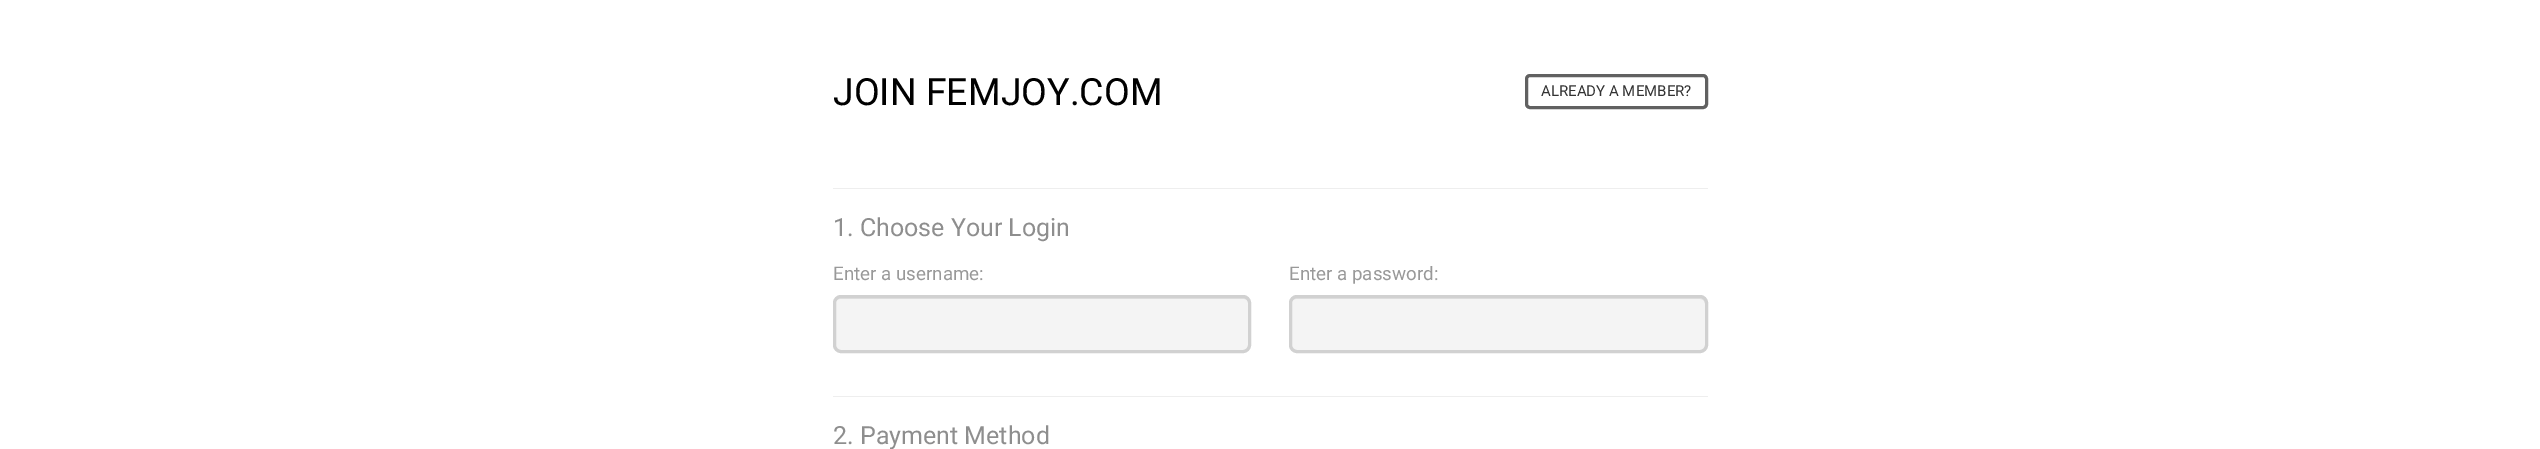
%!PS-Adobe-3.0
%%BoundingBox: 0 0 2540 449
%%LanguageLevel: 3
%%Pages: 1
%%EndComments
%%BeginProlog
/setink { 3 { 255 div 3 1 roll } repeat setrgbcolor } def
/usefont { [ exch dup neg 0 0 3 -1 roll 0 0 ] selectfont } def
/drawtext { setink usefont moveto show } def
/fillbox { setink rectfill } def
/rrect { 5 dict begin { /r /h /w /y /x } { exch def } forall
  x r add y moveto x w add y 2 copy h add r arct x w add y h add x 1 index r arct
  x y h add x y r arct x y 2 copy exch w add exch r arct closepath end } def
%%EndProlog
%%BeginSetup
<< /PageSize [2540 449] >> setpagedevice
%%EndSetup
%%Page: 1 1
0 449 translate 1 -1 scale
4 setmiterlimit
0 0 2540 449 255 255 255 fillbox
(JOIN FEMJOY.COM) 833 105 /Roboto-Regular 37.5 0 0 0 drawtext
97 97 97 setink
3 setlinewidth
1526.5 75.5 180 32 3.5 rrect stroke
(ALREADY A MEMBER?) 1541 96 /Roboto-Regular 15 51 51 51 drawtext
833 188 875 1 238 238 238 fillbox
(1. Choose Your Login) 833 236 /Roboto-Regular 25 142 142 142 drawtext
(Enter a username:) 833 280 /Roboto-Regular 18.75 153 153 153 drawtext
244 244 244 setink
833 295 418 58 8 rrect fill
226 226 226 setink
840 299 moveto 1244 299 lineto 1247 299 1249 301 1249 304 curveto 1249 303 lineto 1249 300 1247 298 1244 298 curveto 840 298 lineto 837 298 835 300 835 303 curveto 835 304 lineto 835 301 837 299 840 299 curveto closepath fill
209 209 209 setink
834.5 296.5 415 55 6.5 rrect stroke
(Enter a password:) 1289 280 /Roboto-Regular 18.75 153 153 153 drawtext
244 244 244 setink
1289 295 419 58 8 rrect fill
226 226 226 setink
1296 299 moveto 1700 299 lineto 1703 299 1705 301 1705 304 curveto 1705 303 lineto 1705 300 1703 298 1700 298 curveto 1296 298 lineto 1293 298 1291 300 1291 303 curveto 1291 304 lineto 1291 301 1293 299 1296 299 curveto closepath fill
209 209 209 setink
1290.5 296.5 416 55 6.5 rrect stroke
833 396 875 1 238 238 238 fillbox
(2. Payment Method) 833 444 /Roboto-Regular 25 142 142 142 drawtext
showpage
%%EOF
